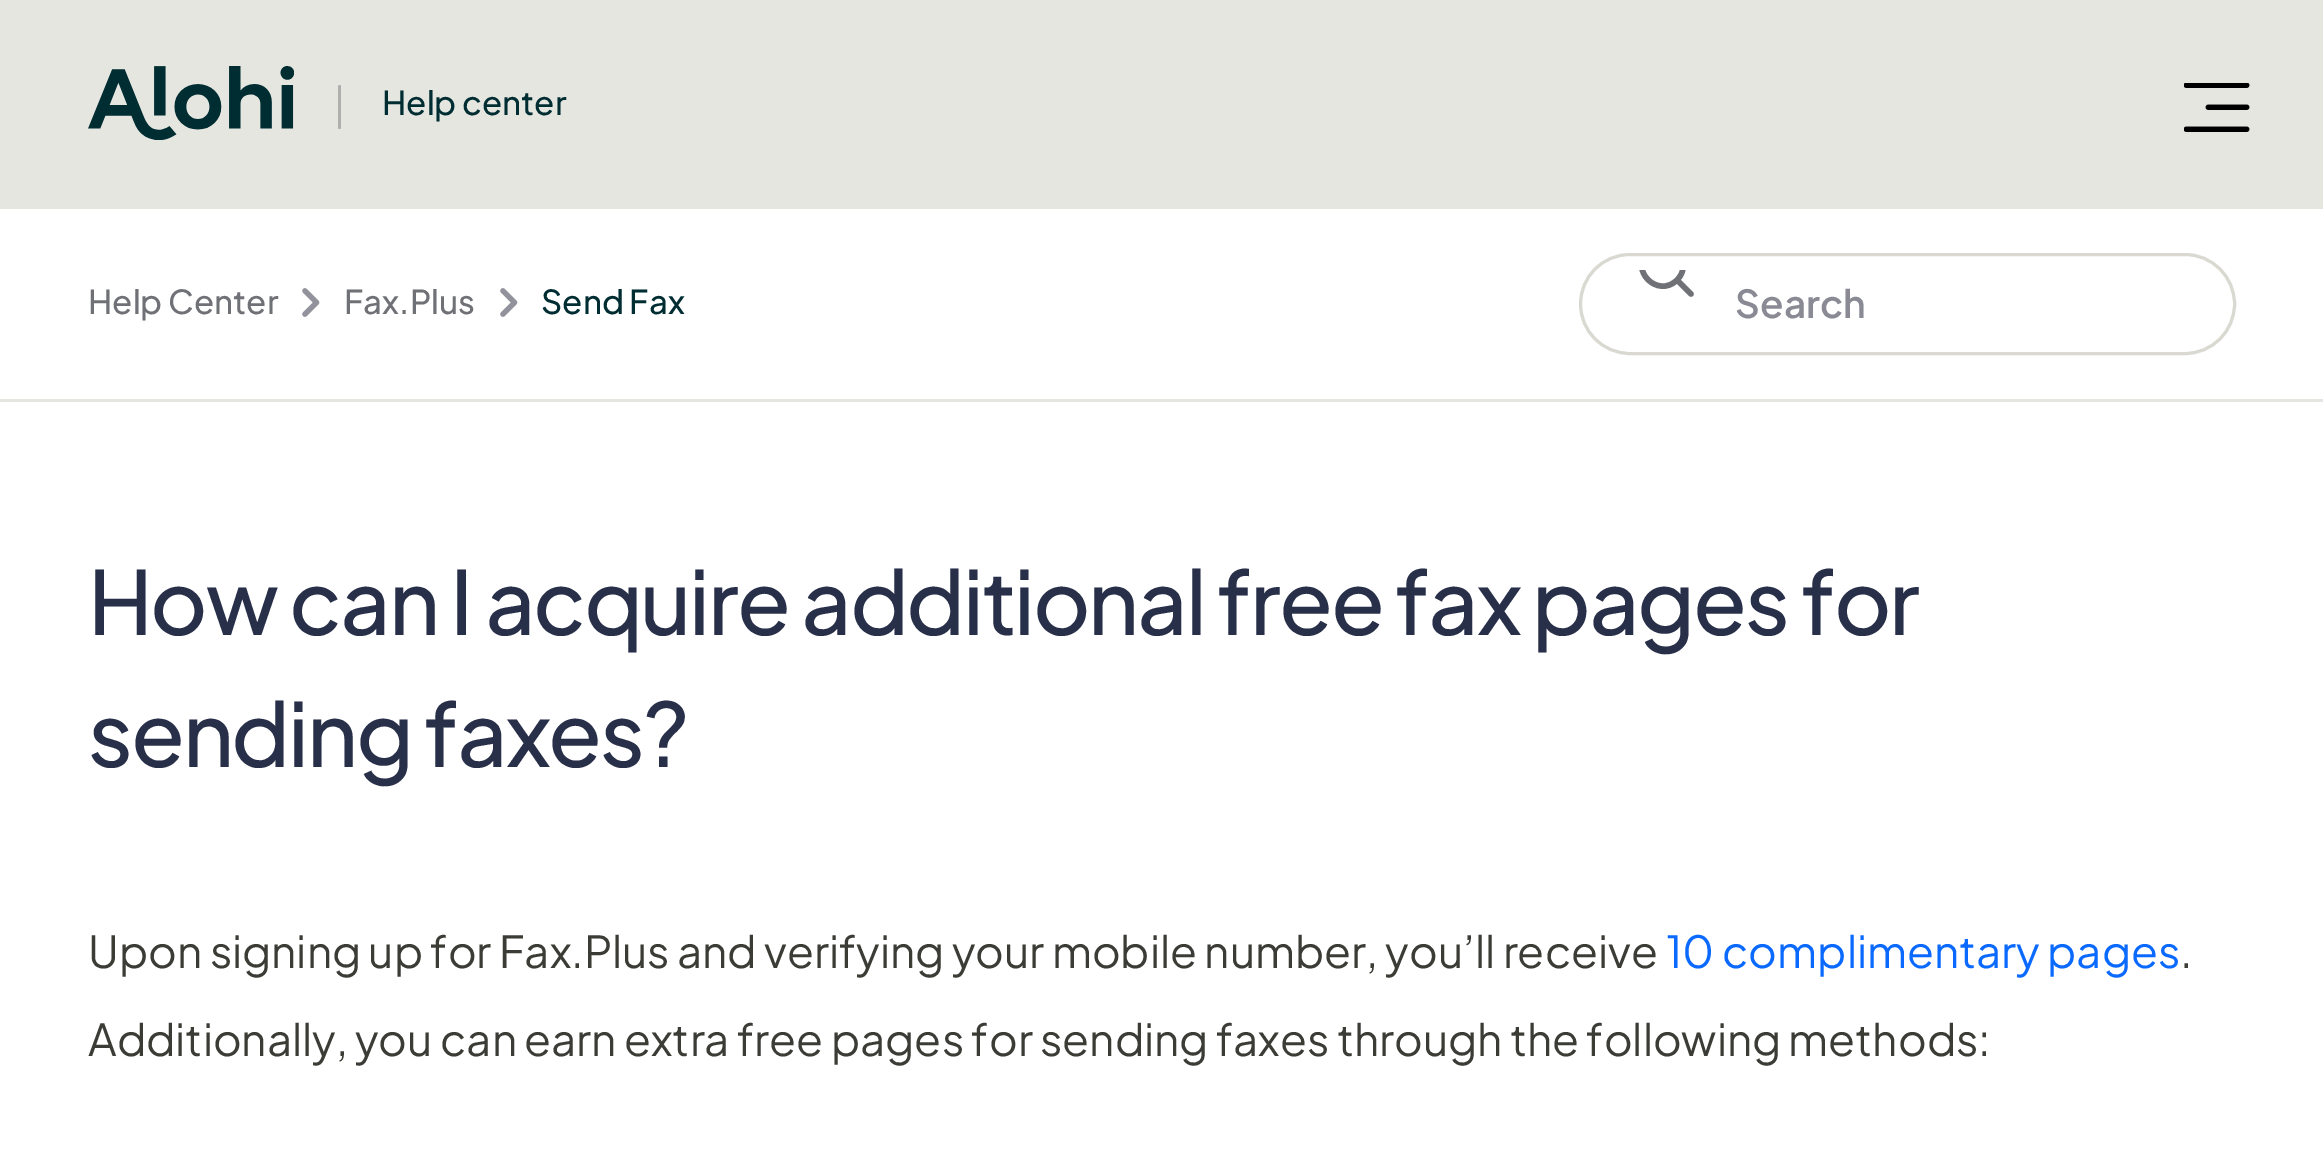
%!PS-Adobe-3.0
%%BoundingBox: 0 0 2323 1159
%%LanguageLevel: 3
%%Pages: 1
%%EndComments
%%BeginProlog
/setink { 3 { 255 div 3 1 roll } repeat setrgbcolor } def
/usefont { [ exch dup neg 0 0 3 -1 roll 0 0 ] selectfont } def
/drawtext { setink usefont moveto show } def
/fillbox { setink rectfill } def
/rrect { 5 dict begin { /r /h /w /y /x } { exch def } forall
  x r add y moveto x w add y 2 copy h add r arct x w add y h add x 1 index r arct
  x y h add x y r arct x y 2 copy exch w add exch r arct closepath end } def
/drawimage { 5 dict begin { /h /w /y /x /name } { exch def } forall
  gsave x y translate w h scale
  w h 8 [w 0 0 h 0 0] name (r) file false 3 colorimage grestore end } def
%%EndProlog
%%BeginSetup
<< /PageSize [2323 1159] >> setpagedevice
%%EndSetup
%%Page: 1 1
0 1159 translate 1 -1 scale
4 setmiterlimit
0 0 2323 1159 255 255 255 fillbox
0 0 2323 209 230 230 225 fillbox
(assets/img1.rgb) 88 66 206 74 drawimage
175 175 175 setink
338 85 3 44 1.5 rrect fill
(Help center) 382 115 /PlusJakartaSans-Medium 33 0 45 50 drawtext
(assets/img2.rgb) 2184 83 66 49 drawimage
0 399 2323 3 230 230 225 fillbox
(Help Center) 88 314 /PlusJakartaSans-Medium 33 112 113 118 drawtext
(assets/img3.rgb) 302 288 18 29 drawimage
(Fax.Plus) 344 314 /PlusJakartaSans-Medium 33 112 113 118 drawtext
(assets/img3.rgb) 500 288 18 29 drawimage
(Send Fax) 541 314 /PlusJakartaSans-Medium 33 0 45 50 drawtext
217 217 210 setink
3 setlinewidth
1580.5 254.5 654 99 49.5 rrect stroke
gsave
1634 270 66 66 rectclip
112 113 118 setink
5.5 setlinewidth
1 setlinecap
1 setlinejoin
1691 294 moveto 1677 280 lineto 1677 280 moveto 1696 261 1667 231.5 1648 251 curveto 1628.5 270 1658 299 1677 280 curveto closepath stroke
grestore
(Search) 1735 318 /PlusJakartaSans-SemiBold 38.5 137 138 148 drawtext
/PlusJakartaSans-Medium 88 usefont
40 47 72 setink
88 635 moveto -2.2 0 (How can I acquire additional free fax pages for) ashow
88 767 moveto -2.2 0 (sending faxes?) ashow
(Upon signing up for Fax.Plus and verifying your mobile number, you’ll receive) 88 968 /PlusJakartaSans-Regular 44 60 60 55 drawtext
(10 complimentary pages) 1666 968 /PlusJakartaSans-Regular 44 10 105 255 drawtext
(.) 2180 968 /PlusJakartaSans-Regular 44 60 60 55 drawtext
(Additionally, you can earn extra free pages for sending faxes through the following methods:) 88 1056 /PlusJakartaSans-Regular 44 60 60 55 drawtext
showpage
%%EOF
